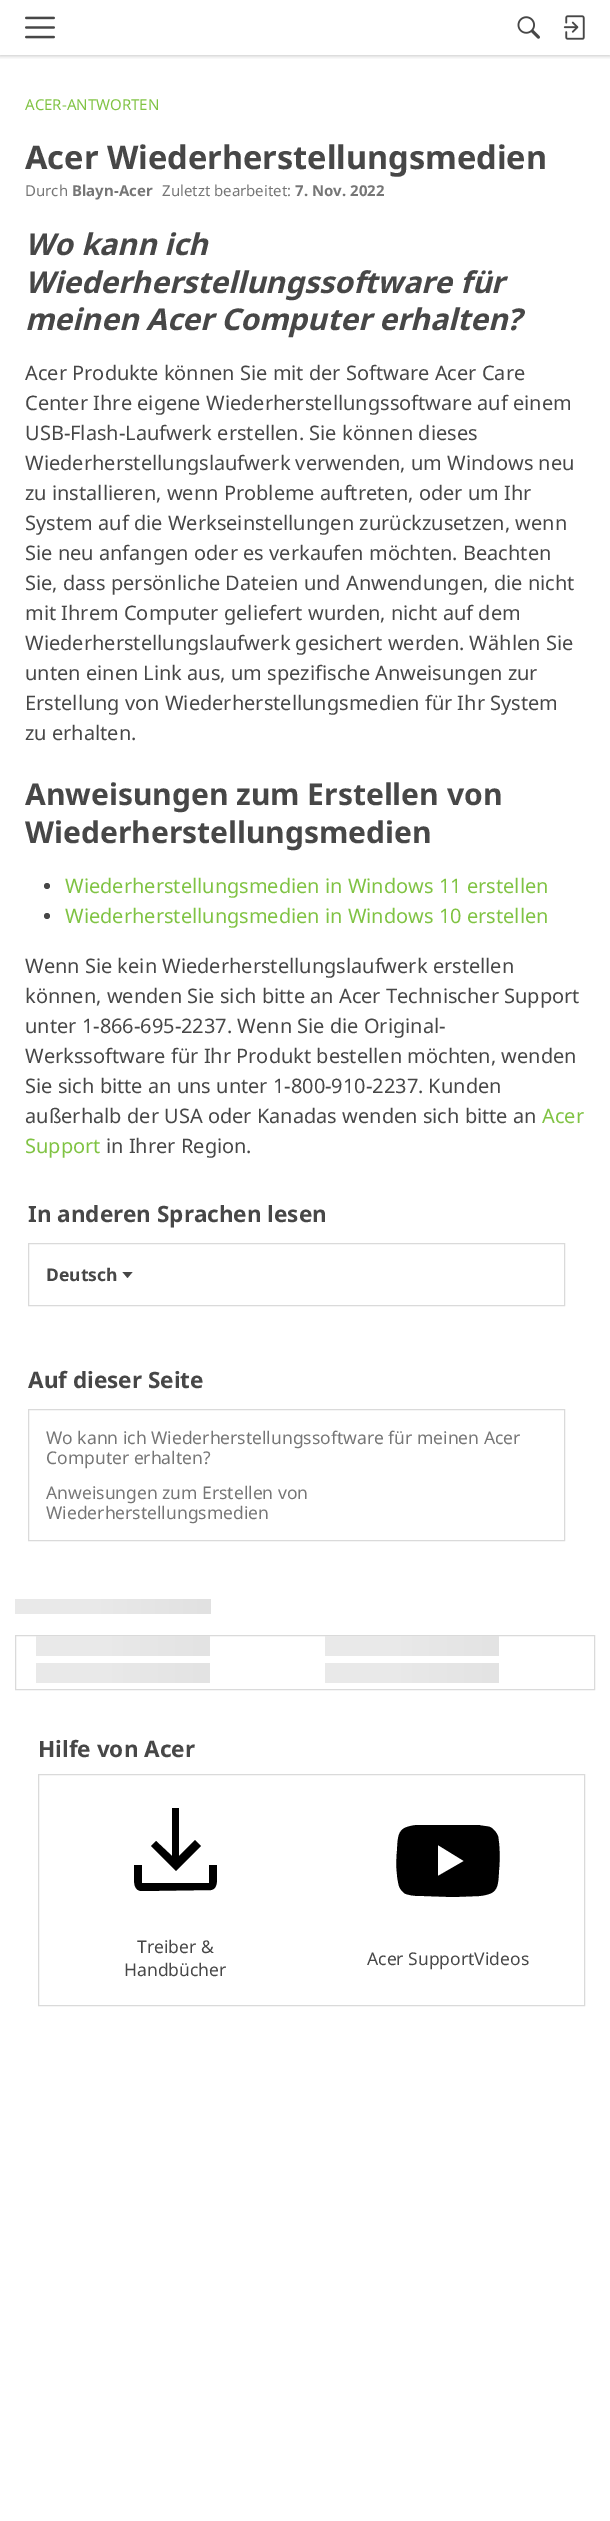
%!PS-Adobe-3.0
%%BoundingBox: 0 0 610 2521
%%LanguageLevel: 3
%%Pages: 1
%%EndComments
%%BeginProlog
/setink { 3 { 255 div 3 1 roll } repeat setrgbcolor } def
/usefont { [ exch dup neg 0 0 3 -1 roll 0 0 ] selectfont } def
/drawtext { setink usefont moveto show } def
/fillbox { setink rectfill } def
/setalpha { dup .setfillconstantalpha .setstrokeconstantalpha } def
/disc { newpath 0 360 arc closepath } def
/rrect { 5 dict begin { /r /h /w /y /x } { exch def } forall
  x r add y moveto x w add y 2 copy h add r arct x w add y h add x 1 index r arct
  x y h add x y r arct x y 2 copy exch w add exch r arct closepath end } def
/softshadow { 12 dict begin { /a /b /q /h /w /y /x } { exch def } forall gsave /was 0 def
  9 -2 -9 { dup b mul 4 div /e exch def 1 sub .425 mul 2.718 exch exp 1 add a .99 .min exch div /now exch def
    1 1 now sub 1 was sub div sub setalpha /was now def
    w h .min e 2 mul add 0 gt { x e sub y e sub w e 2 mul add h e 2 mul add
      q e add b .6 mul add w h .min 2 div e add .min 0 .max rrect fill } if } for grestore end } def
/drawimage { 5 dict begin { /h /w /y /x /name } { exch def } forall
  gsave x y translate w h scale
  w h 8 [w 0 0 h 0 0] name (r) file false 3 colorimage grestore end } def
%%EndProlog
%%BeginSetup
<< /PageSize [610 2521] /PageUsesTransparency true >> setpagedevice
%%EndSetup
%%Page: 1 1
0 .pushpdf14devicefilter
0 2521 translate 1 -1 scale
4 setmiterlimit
0 0 610 2521 255 255 255 fillbox
gsave
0 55 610 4 rectclip
0 0 0 setink
0 1 610 55 0 2 0.22 softshadow
grestore
(assets/img1.rgb) 25 16 30 23 drawimage
(assets/img2.rgb) 517 16 23 23 drawimage
(assets/img3.rgb) 563 15 22 25 drawimage
(ACER-ANTWORTEN) 25 110 /NotoSans-Regular 15 128 195 67 drawtext
(Acer Wiederherstellungsmedien) 25 169 /NotoSans-Bold 32.5 71 71 71 drawtext
(Durch) 25 196 /NotoSans-Regular 15 118 118 118 drawtext
(Blayn-Acer) 72 196 /NotoSans-Bold 15 118 118 118 drawtext
(Zuletzt bearbeitet:) 162 196 /NotoSans-Regular 15 118 118 118 drawtext
(7. Nov. 2022) 295 196 /NotoSans-Bold 15 118 118 118 drawtext
(Wo kann ich) 25 255 /NotoSans-BoldItalic 30 71 71 71 drawtext
(Wiederherstellungssoftware für) 25 293 /NotoSans-BoldItalic 30 71 71 71 drawtext
(meinen Acer Computer erhalten?) 25 330 /NotoSans-BoldItalic 30 71 71 71 drawtext
(Acer Produkte können Sie mit der Software Acer Care) 25 380 /NotoSans-Regular 20 71 71 71 drawtext
(Center Ihre eigene Wiederherstellungssoftware auf einem) 25 410 /NotoSans-Regular 20 71 71 71 drawtext
(USB-Flash-Laufwerk erstellen. Sie können dieses) 25 440 /NotoSans-Regular 20 71 71 71 drawtext
(Wiederherstellungslaufwerk verwenden, um Windows neu) 25 470 /NotoSans-Regular 20 71 71 71 drawtext
(zu installieren, wenn Probleme auftreten, oder um Ihr) 25 500 /NotoSans-Regular 20 71 71 71 drawtext
(System auf die Werkseinstellungen zurückzusetzen, wenn) 25 530 /NotoSans-Regular 20 71 71 71 drawtext
(Sie neu anfangen oder es verkaufen möchten. Beachten) 25 560 /NotoSans-Regular 20 71 71 71 drawtext
(Sie, dass persönliche Dateien und Anwendungen, die nicht) 25 590 /NotoSans-Regular 20 71 71 71 drawtext
(mit Ihrem Computer geliefert wurden, nicht auf dem) 25 620 /NotoSans-Regular 20 71 71 71 drawtext
(Wiederherstellungslaufwerk gesichert werden. Wählen Sie) 25 650 /NotoSans-Regular 20 71 71 71 drawtext
(unten einen Link aus, um spezifische Anweisungen zur) 25 680 /NotoSans-Regular 20 71 71 71 drawtext
(Erstellung von Wiederherstellungsmedien für Ihr System) 25 710 /NotoSans-Regular 20 71 71 71 drawtext
(zu erhalten.) 25 740 /NotoSans-Regular 20 71 71 71 drawtext
(Anweisungen zum Erstellen von) 25 805 /NotoSans-Bold 30 71 71 71 drawtext
(Wiederherstellungsmedien) 25 843 /NotoSans-Bold 30 71 71 71 drawtext
47 886 3 disc fill
(Wiederherstellungsmedien in Windows 11 erstellen) 65 893 /NotoSans-Regular 20 128 195 67 drawtext
71 71 71 setink
47 916 3 disc fill
(Wiederherstellungsmedien in Windows 10 erstellen) 65 923 /NotoSans-Regular 20 128 195 67 drawtext
(Wenn Sie kein Wiederherstellungslaufwerk erstellen) 25 973 /NotoSans-Regular 20 71 71 71 drawtext
(können, wenden Sie sich bitte an Acer Technischer Support) 25 1003 /NotoSans-Regular 20 71 71 71 drawtext
(unter 1-866-695-2237. Wenn Sie die Original-) 25 1033 /NotoSans-Regular 20 71 71 71 drawtext
(Werkssoftware für Ihr Produkt bestellen möchten, wenden) 25 1063 /NotoSans-Regular 20 71 71 71 drawtext
(Sie sich bitte an uns unter 1-800-910-2237. Kunden) 25 1093 /NotoSans-Regular 20 71 71 71 drawtext
(außerhalb der USA oder Kanadas wenden sich bitte an) 25 1123 /NotoSans-Regular 20 71 71 71 drawtext
(Acer) 542 1123 /NotoSans-Regular 20 128 195 67 drawtext
(Support) 25 1153 /NotoSans-Regular 20 128 195 67 drawtext
(in Ihrer Region.) 106 1153 /NotoSans-Regular 20 71 71 71 drawtext
(In anderen Sprachen lesen) 28 1222 /NotoSans-Bold 22.5 71 71 71 drawtext
218 218 218 setink
28.5 1243.5 536 62 rectstroke
(Deutsch) 46 1281 /NotoSans-Bold 17.5 71 71 71 drawtext
122.5 1272 moveto 132.5 1272 lineto 127.5 1278 lineto closepath fill
(Auf dieser Seite) 28 1388 /NotoSans-Bold 22.5 71 71 71 drawtext
218 218 218 setink
28.5 1409.5 536 131 rectstroke
(Wo kann ich Wiederherstellungssoftware für meinen Acer) 46 1444 /NotoSans-Regular 17.5 118 118 118 drawtext
(Computer erhalten?) 46 1464 /NotoSans-Regular 17.5 118 118 118 drawtext
(Anweisungen zum Erstellen von) 46 1499 /NotoSans-Regular 17.5 118 118 118 drawtext
(Wiederherstellungsmedien) 46 1519 /NotoSans-Regular 17.5 118 118 118 drawtext
gsave 15 1599 196 15 2.5 rrect clip newpath
<< /ShadingType 2 /ColorSpace /DeviceRGB /Coords [15 1606 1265 1606] /Extend [true true] /Function << /FunctionType 3 /Domain [0 1] /Functions [<< /FunctionType 2 /Domain [0 1] /C0 [0.914 0.914 0.914] /C1 [0.914 0.914 0.914] /N 1 >> << /FunctionType 2 /Domain [0 1] /C0 [0.914 0.914 0.914] /C1 [0.855 0.855 0.855] /N 1 >> << /FunctionType 2 /Domain [0 1] /C0 [0.855 0.855 0.855] /C1 [0.914 0.914 0.914] /N 1 >> << /FunctionType 2 /Domain [0 1] /C0 [0.914 0.914 0.914] /C1 [0.914 0.914 0.914] /N 1 >>] /Bounds [0.06 0.25 0.34] /Encode [0 1 0 1 0 1 0 1] >> >> shfill grestore
218 218 218 setink
15.5 1635.5 579 54 rectstroke
gsave 36 1636 174 20 2.5 rrect clip newpath
<< /ShadingType 2 /ColorSpace /DeviceRGB /Coords [36 1646 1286 1646] /Extend [true true] /Function << /FunctionType 3 /Domain [0 1] /Functions [<< /FunctionType 2 /Domain [0 1] /C0 [0.914 0.914 0.914] /C1 [0.914 0.914 0.914] /N 1 >> << /FunctionType 2 /Domain [0 1] /C0 [0.914 0.914 0.914] /C1 [0.855 0.855 0.855] /N 1 >> << /FunctionType 2 /Domain [0 1] /C0 [0.855 0.855 0.855] /C1 [0.914 0.914 0.914] /N 1 >> << /FunctionType 2 /Domain [0 1] /C0 [0.914 0.914 0.914] /C1 [0.914 0.914 0.914] /N 1 >>] /Bounds [0.06 0.25 0.34] /Encode [0 1 0 1 0 1 0 1] >> >> shfill grestore
gsave 325 1636 174 20 2.5 rrect clip newpath
<< /ShadingType 2 /ColorSpace /DeviceRGB /Coords [325 1646 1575 1646] /Extend [true true] /Function << /FunctionType 3 /Domain [0 1] /Functions [<< /FunctionType 2 /Domain [0 1] /C0 [0.914 0.914 0.914] /C1 [0.914 0.914 0.914] /N 1 >> << /FunctionType 2 /Domain [0 1] /C0 [0.914 0.914 0.914] /C1 [0.855 0.855 0.855] /N 1 >> << /FunctionType 2 /Domain [0 1] /C0 [0.855 0.855 0.855] /C1 [0.914 0.914 0.914] /N 1 >> << /FunctionType 2 /Domain [0 1] /C0 [0.914 0.914 0.914] /C1 [0.914 0.914 0.914] /N 1 >>] /Bounds [0.06 0.25 0.34] /Encode [0 1 0 1 0 1 0 1] >> >> shfill grestore
gsave 36 1663 174 20 2.5 rrect clip newpath
<< /ShadingType 2 /ColorSpace /DeviceRGB /Coords [36 1673 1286 1673] /Extend [true true] /Function << /FunctionType 3 /Domain [0 1] /Functions [<< /FunctionType 2 /Domain [0 1] /C0 [0.914 0.914 0.914] /C1 [0.914 0.914 0.914] /N 1 >> << /FunctionType 2 /Domain [0 1] /C0 [0.914 0.914 0.914] /C1 [0.855 0.855 0.855] /N 1 >> << /FunctionType 2 /Domain [0 1] /C0 [0.855 0.855 0.855] /C1 [0.914 0.914 0.914] /N 1 >> << /FunctionType 2 /Domain [0 1] /C0 [0.914 0.914 0.914] /C1 [0.914 0.914 0.914] /N 1 >>] /Bounds [0.06 0.25 0.34] /Encode [0 1 0 1 0 1 0 1] >> >> shfill grestore
gsave 325 1663 174 20 2.5 rrect clip newpath
<< /ShadingType 2 /ColorSpace /DeviceRGB /Coords [325 1673 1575 1673] /Extend [true true] /Function << /FunctionType 3 /Domain [0 1] /Functions [<< /FunctionType 2 /Domain [0 1] /C0 [0.914 0.914 0.914] /C1 [0.914 0.914 0.914] /N 1 >> << /FunctionType 2 /Domain [0 1] /C0 [0.914 0.914 0.914] /C1 [0.855 0.855 0.855] /N 1 >> << /FunctionType 2 /Domain [0 1] /C0 [0.855 0.855 0.855] /C1 [0.914 0.914 0.914] /N 1 >> << /FunctionType 2 /Domain [0 1] /C0 [0.914 0.914 0.914] /C1 [0.914 0.914 0.914] /N 1 >>] /Bounds [0.06 0.25 0.34] /Encode [0 1 0 1 0 1 0 1] >> >> shfill grestore
(Hilfe von Acer) 38 1757 /NotoSans-Bold 22.5 71 71 71 drawtext
218 218 218 setink
38.5 1774.5 546 231 rectstroke
0 0 0 setink
142 1891 moveto 134 1891 134 1883 134 1877 curveto 134 1865 lineto 142 1865 lineto 142 1883 lineto 209 1883 lineto 209 1865 lineto 217 1865 lineto 217 1877 lineto 217 1882 217 1889 211 1890 curveto closepath 176 1871 moveto 151 1846 lineto 156 1841 lineto 172 1856 lineto 172 1808 lineto 179 1808 lineto 179 1856 lineto 195 1840 lineto 201 1846 lineto closepath fill
(Treiber &) 137 1953 /NotoSans-Regular 17.5 71 71 71 drawtext
(Handbücher) 124 1976 /NotoSans-Regular 17.5 71 71 71 drawtext
0 0 0 setink
498 1836 moveto 496 1832 494 1829 490 1827 curveto 487 1826 482 1826 479 1825 curveto 447 1825 lineto 417 1825 lineto 398 1827 398 1833 397 1851 curveto 396 1862 396 1875 399 1886 curveto 400 1889 403 1893 406 1894 curveto 412 1896 418 1896 424 1896 curveto 453 1897 lineto 479 1896 lineto 498 1894 498 1888 499 1870 curveto 500 1859 500 1847 498 1836 curveto closepath 438 1876 moveto 438 1845 lineto 464 1861 lineto closepath fill
(Acer SupportVideos) 367 1965 /NotoSans-Regular 17.5 71 71 71 drawtext
.poppdf14devicefilter showpage
%%EOF
